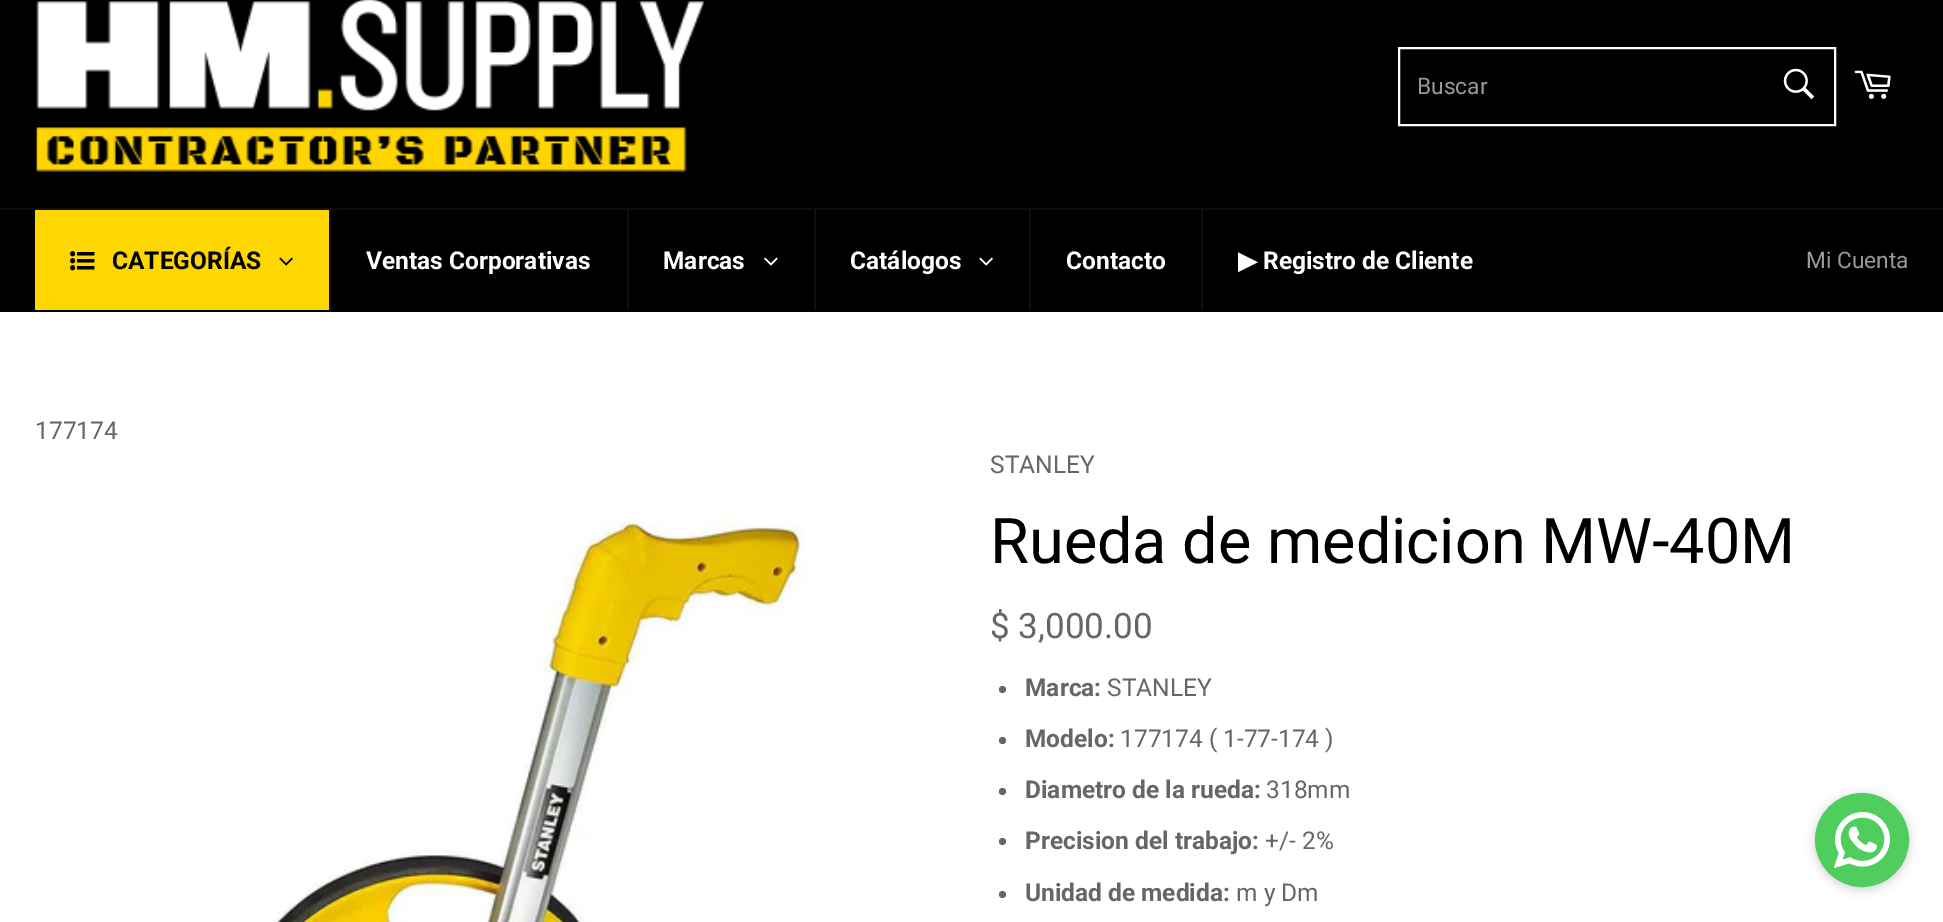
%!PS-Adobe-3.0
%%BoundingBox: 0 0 1943 922
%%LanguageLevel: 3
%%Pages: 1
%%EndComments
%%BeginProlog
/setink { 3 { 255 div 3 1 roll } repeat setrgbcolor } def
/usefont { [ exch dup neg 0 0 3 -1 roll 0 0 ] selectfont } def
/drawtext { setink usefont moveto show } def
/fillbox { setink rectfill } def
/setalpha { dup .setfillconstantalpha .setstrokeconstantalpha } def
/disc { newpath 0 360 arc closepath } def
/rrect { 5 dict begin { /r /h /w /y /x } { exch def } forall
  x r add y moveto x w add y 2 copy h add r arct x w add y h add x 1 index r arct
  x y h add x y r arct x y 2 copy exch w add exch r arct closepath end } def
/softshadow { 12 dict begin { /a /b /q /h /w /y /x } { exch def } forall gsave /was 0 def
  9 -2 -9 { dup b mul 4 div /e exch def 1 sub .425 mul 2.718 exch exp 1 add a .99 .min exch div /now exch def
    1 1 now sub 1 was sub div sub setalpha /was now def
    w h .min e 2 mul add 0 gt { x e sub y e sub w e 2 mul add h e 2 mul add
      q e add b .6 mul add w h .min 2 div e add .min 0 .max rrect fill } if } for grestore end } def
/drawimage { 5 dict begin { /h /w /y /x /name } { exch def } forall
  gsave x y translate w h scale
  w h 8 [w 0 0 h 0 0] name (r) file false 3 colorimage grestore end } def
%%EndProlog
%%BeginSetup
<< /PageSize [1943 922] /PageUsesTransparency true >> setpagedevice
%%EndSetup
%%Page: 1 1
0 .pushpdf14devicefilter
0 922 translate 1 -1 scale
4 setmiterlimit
0 0 1943 922 255 255 255 fillbox
0 0 1943 208 0 0 0 fillbox
(assets/img1.rgb) 36 0 668 172 drawimage
255 255 255 setink
2 setlinewidth
1399 48 436 77 rectstroke
(Buscar) 1417 94 /Roboto-Regular 22.75 153 153 153 drawtext
(assets/img2.rgb) 1783 68 32 32 drawimage
(assets/img3.rgb) 1854 70 37 29 drawimage
0 210 1943 102 0 0 0 fillbox
0 208 1943 2 13 13 13 fillbox
35 210 294 100 255 215 0 fillbox
(assets/img4.rgb) 70 251 25 20 drawimage
(CATEGORÍAS) 112 269 /Roboto-Bold 24.5 0 0 0 drawtext
(assets/img5.rgb) 279 257 14 9 drawimage
329 210 2 100 15 15 15 fillbox
(Ventas Corporativas) 366 269 /Roboto-Bold 24.5 255 255 255 drawtext
627 210 2 100 15 15 15 fillbox
(Marcas) 663 269 /Roboto-Bold 24.5 255 255 255 drawtext
(assets/img6.rgb) 764 257 14 9 drawimage
814 210 2 100 15 15 15 fillbox
(Catálogos) 850 269 /Roboto-Bold 24.5 255 255 255 drawtext
(assets/img7.rgb) 979 257 14 9 drawimage
1029 210 2 100 15 15 15 fillbox
(Contacto) 1066 269 /Roboto-Bold 24.5 255 255 255 drawtext
1201 210 2 100 15 15 15 fillbox
(▶) 1238 269 /DejaVuSans-Bold 24.5 255 255 255 drawtext
(Registro de Cliente) 1263 269 /Roboto-Bold 24.5 255 255 255 drawtext
(Mi Cuenta) 1806 268 /Roboto-Regular 22.75 153 153 153 drawtext
(177174) 35 439 /Roboto-Regular 24.5 102 102 102 drawtext
(assets/img8.rgb) 272 518 537 404 drawimage
(STANLEY) 990 473 /Roboto-Regular 24.5 102 102 102 drawtext
(Rueda de medicion MW-40M) 990 563 /Roboto-Regular 63 0 0 0 drawtext
($ 3,000.00) 990 638 /Roboto-Regular 35 102 102 102 drawtext
1002.5 689.5 3.5 disc fill
(Marca:) 1025 696 /Roboto-Bold 24.5 102 102 102 drawtext
(STANLEY) 1107 696 /Roboto-Regular 24.5 102 102 102 drawtext
1002.5 740.5 3.5 disc fill
(Modelo:) 1025 747 /Roboto-Bold 24.5 102 102 102 drawtext
(177174 \( 1-77-174 \)) 1120 747 /Roboto-Regular 24.5 102 102 102 drawtext
1002.5 791.5 3.5 disc fill
(Diametro de la rueda:) 1025 798 /Roboto-Bold 24.5 102 102 102 drawtext
(318mm) 1266 798 /Roboto-Regular 24.5 102 102 102 drawtext
1002.5 841.5 3.5 disc fill
(Precision del trabajo:) 1025 849 /Roboto-Bold 24.5 102 102 102 drawtext
(+/- 2%) 1265 849 /Roboto-Regular 24.5 102 102 102 drawtext
1002.5 894.5 3.5 disc fill
(Unidad de medida:) 1025 901 /Roboto-Bold 24.5 102 102 102 drawtext
(m y Dm) 1236 901 /Roboto-Regular 24.5 102 102 102 drawtext
27 27 27 setink
1815 795 94 94 47 5 0.2 softshadow
79 206 93 setink
1862 840 46 disc gsave fill grestore
stroke
(assets/img9.rgb) 1834 812 56 56 drawimage
.poppdf14devicefilter showpage
%%EOF
